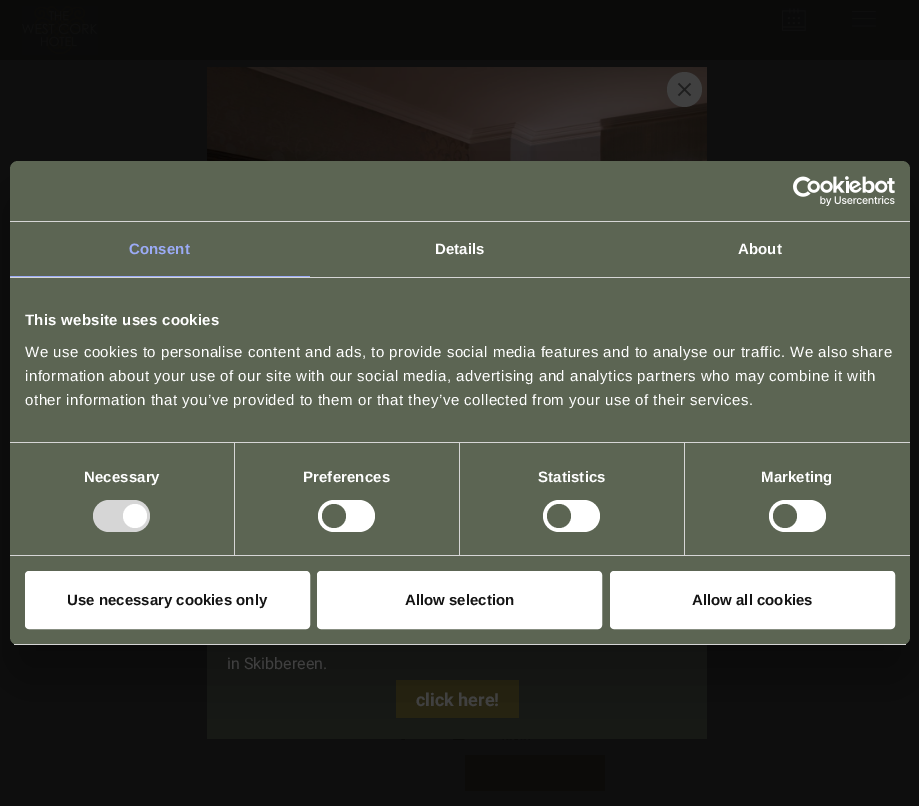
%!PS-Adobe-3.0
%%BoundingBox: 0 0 919 806
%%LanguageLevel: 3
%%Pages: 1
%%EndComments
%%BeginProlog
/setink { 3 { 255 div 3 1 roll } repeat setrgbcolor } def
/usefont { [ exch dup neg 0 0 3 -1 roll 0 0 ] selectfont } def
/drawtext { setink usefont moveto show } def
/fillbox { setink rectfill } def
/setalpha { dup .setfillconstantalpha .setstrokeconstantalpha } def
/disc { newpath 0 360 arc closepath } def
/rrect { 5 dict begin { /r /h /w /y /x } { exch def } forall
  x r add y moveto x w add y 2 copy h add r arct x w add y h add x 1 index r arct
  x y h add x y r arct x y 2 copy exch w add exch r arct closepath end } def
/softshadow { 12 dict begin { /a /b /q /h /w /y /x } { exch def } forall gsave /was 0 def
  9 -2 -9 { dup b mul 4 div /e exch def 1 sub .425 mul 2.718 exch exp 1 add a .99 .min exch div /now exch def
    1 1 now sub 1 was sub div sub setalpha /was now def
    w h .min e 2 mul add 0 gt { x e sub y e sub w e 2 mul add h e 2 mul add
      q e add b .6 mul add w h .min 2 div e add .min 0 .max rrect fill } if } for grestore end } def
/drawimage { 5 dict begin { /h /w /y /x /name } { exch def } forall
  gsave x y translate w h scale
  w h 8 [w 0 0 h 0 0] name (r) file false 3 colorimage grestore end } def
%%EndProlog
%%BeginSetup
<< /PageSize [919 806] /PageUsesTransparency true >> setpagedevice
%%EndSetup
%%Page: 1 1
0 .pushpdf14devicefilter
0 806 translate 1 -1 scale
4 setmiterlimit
0 0 919 806 14 14 14 fillbox
(assets/img4.rgb) 381 0 11 6 drawimage
(assets/img5.rgb) 399 0 5 7 drawimage
(assets/img5.rgb) 461 0 5 7 drawimage
0.9 setalpha
0 0 919 60 10 10 9 fillbox
1 setalpha
(assets/img1.rgb) 22 6 76 49 drawimage
(assets/img2.rgb) 782 8 24 23 drawimage
(assets/img3.rgb) 852 11 24 16 drawimage
(assets/img6.rgb) 908 164 1 2 drawimage
465 755 140 36 12 11 9 fillbox
207 645 500 94 23 25 21 fillbox
(assets/img8.rgb) 207 67 500 94 drawimage
64 64 64 setink
684.5 89.5 17.5 disc fill
30 30 30 setink
1.5 setlinewidth
678.5 83.5 moveto 690.5 95.5 lineto 690.5 83.5 moveto 678.5 95.5 lineto stroke
396 680 123 38 39 36 17 fillbox
(assets/img9.rgb) 401 739 5 1 drawimage
(assets/img10.rgb) 452 739 13 1 drawimage
(assets/img11.rgb) 502 739 28 1 drawimage
0 0 0 setink
10 193 900 484 8 34 0.3 softshadow
92 101 83 setink
10 161 900 484 8 rrect fill
10 221 900 1 214 214 214 fillbox
(assets/img7.rgb) 793 176 102 30 drawimage
10 277 900 1 214 214 214 fillbox
10 276 300 1 155 171 246 fillbox
/LiberationSans-Bold 15 usefont
129 254 moveto 0.1 0 (Consent) ashow
255 255 255 setink
435 254 moveto 0.1 0 (Details) ashow
738 254 moveto 0.1 0 (About) ashow
10 442 900 1 214 214 214 fillbox
255 255 255 setink
25 325 moveto 0.25 0 (This website uses cookies) ashow
/LiberationSans-Regular 15 usefont
25 357 moveto 0.5 0 (We use cookies to personalise content and ads, to provide social media features and to analyse our traffic. We also share) ashow
25 381 moveto 0.5 0 (information about your use of our site with our social media, advertising and analytics partners who may combine it with) ashow
25 405 moveto 0.5 0 (other information that you’ve provided to them or that they’ve collected from your use of their services.) ashow
10 555 900 1 214 214 214 fillbox
234 443 1 112 214 214 214 fillbox
/LiberationSans-Bold 15 usefont
255 255 255 setink
84 482 moveto 0.1 0 (Necessary) ashow
214 214 214 setink
93 500 57 32 16 rrect fill
255 255 255 setink
135 516 12 disc fill
459 443 1 112 214 214 214 fillbox
255 255 255 setink
303 482 moveto 0.1 0 (Preferences) ashow
318 500 57 32 16 rrect fill
92 101 83 setink
334 516 12 disc fill
684 443 1 112 214 214 214 fillbox
255 255 255 setink
538 482 moveto 0.1 0 (Statistics) ashow
543 500 57 32 16 rrect fill
92 101 83 setink
559 516 12 disc fill
255 255 255 setink
761 482 moveto 0.1 0 (Marketing) ashow
769 500 57 32 16 rrect fill
92 101 83 setink
785 516 12 disc fill
gsave
10 161 900 484 8 rrect clip newpath
10 644 900 1 214 214 214 fillbox
grestore
255 255 255 setink
26 572 283 56 3 rrect gsave fill grestore
2 setlinewidth
stroke
(Use necessary cookies only) 67 605 /LiberationSans-Bold 15 20 20 20 drawtext
255 255 255 setink
318 572 283 56 3 rrect gsave fill grestore
stroke
(Allow selection) 405 605 /LiberationSans-Bold 15 20 20 20 drawtext
255 255 255 setink
611 572 283 56 3 rrect gsave fill grestore
stroke
(Allow all cookies) 692 605 /LiberationSans-Bold 15 20 20 20 drawtext
(in Skibbereen.) 227 669 /Roboto-Regular 16 64 64 64 drawtext
(click here!) 416 706 /Roboto-Bold 18 64 64 64 drawtext
.poppdf14devicefilter showpage
%%EOF
